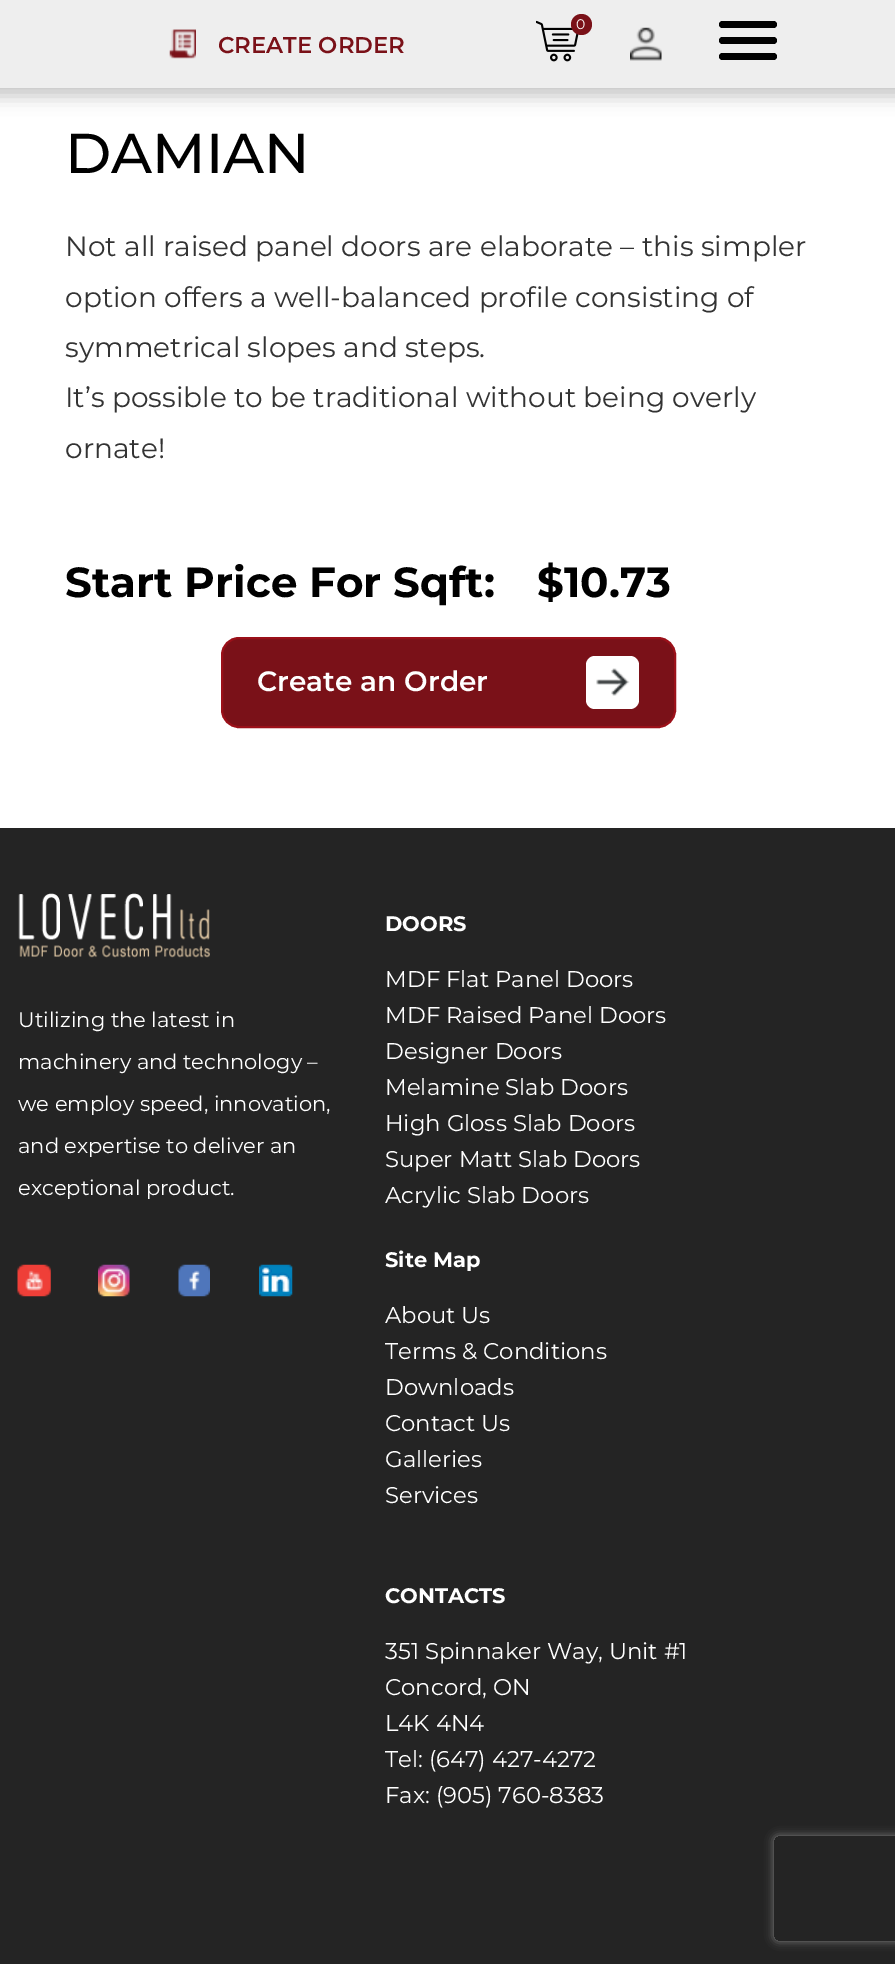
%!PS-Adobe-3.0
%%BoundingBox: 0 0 895 1964
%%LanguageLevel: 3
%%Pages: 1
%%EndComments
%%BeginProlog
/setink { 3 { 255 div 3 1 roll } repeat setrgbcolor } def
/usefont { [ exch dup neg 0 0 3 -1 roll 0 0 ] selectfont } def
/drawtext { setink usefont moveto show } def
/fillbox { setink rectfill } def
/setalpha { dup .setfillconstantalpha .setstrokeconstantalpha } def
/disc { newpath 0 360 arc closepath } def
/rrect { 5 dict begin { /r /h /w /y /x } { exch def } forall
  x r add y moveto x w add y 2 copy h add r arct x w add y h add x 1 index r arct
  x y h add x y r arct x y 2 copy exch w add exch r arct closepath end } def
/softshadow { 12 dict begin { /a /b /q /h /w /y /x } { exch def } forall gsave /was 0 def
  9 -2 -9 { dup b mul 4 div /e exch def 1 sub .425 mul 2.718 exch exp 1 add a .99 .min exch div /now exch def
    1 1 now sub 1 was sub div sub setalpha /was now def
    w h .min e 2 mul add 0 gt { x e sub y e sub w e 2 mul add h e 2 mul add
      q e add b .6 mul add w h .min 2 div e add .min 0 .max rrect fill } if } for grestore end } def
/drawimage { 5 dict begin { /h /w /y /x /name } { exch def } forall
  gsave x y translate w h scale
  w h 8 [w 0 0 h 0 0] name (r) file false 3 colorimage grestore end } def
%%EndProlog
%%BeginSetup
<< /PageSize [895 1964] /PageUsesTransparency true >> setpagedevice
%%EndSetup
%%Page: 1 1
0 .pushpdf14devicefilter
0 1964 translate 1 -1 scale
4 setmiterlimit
0 0 895 1964 255 255 255 fillbox
0 0 0 setink
-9 -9 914 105 0 9 0.23 softshadow
0 0 895 88 238 238 238 fillbox
(assets/img1.rgb) 536 20 43 42 drawimage
122 17 24 setink
581.5 24.5 10.5 disc fill
(0) 576 29 /Montserrat-Regular 14 255 255 255 drawtext
(assets/img2.rgb) 630 27 32 34 drawimage
0 0 0 setink
719 21 58 7 3.5 rrect fill
719 37 58 7 3.5 rrect fill
719 53 58 7 3.5 rrect fill
(assets/img3.rgb) 169 29 27 30 drawimage
(CREATE ORDER) 218 53 /Montserrat-SemiBold 22.75 122 17 24 drawtext
(DAMIAN) 65 173 /Montserrat-Medium 56 0 0 0 drawtext
(Not all raised panel doors are elaborate – this simpler) 65 256 /Montserrat-Regular 28 51 51 51 drawtext
(option offers a well-balanced profile consisting of) 65 307 /Montserrat-Regular 28 51 51 51 drawtext
(symmetrical slopes and steps.) 65 357 /Montserrat-Regular 28 51 51 51 drawtext
(It’s possible to be traditional without being overly) 65 407 /Montserrat-Regular 28 51 51 51 drawtext
(ornate!) 65 458 /Montserrat-Regular 28 51 51 51 drawtext
(Start Price For Sqft:) 65 597 /Montserrat-Bold 42 0 0 0 drawtext
($10.73) 537 597 /Montserrat-Bold 42 0 0 0 drawtext
122 17 24 setink
222 638 453 89 17 rrect gsave fill grestore
155 16 25 setink
2 setlinewidth
stroke
(Create an Order) 257 691 /Montserrat-SemiBold 28 255 255 255 drawtext
586 656 53 53 9 rrect fill
(assets/img4.rgb) 596 668 34 28 drawimage
0 828 895 1136 36 36 36 fillbox
(assets/img5.rgb) 18 893 192 65 drawimage
(Utilizing the latest in) 18 1027 /Montserrat-Regular 21 255 255 255 drawtext
(machinery and technology –) 18 1069 /Montserrat-Regular 21 255 255 255 drawtext
(we employ speed, innovation,) 18 1111 /Montserrat-Regular 21 255 255 255 drawtext
(and expertise to deliver an) 18 1153 /Montserrat-Regular 21 255 255 255 drawtext
(exceptional product.) 18 1195 /Montserrat-Regular 21 255 255 255 drawtext
(assets/img6.rgb) 17 1264 34 33 drawimage
(assets/img7.rgb) 98 1264 32 33 drawimage
(assets/img8.rgb) 178 1264 32 33 drawimage
(assets/img9.rgb) 259 1264 34 33 drawimage
(DOORS) 385 931 /Montserrat-Bold 21 255 255 255 drawtext
(MDF Flat Panel Doors) 385 987 /Montserrat-Regular 22.75 255 255 255 drawtext
(MDF Raised Panel Doors) 385 1023 /Montserrat-Regular 22.75 255 255 255 drawtext
(Designer Doors) 385 1059 /Montserrat-Regular 22.75 255 255 255 drawtext
(Melamine Slab Doors) 385 1095 /Montserrat-Regular 22.75 255 255 255 drawtext
(High Gloss Slab Doors) 385 1131 /Montserrat-Regular 22.75 255 255 255 drawtext
(Super Matt Slab Doors) 385 1167 /Montserrat-Regular 22.75 255 255 255 drawtext
(Acrylic Slab Doors) 385 1203 /Montserrat-Regular 22.75 255 255 255 drawtext
(Site Map) 385 1267 /Montserrat-Bold 21 255 255 255 drawtext
(About Us) 385 1323 /Montserrat-Regular 22.75 255 255 255 drawtext
(Terms & Conditions) 385 1359 /Montserrat-Regular 22.75 255 255 255 drawtext
(Downloads) 385 1395 /Montserrat-Regular 22.75 255 255 255 drawtext
(Contact Us) 385 1431 /Montserrat-Regular 22.75 255 255 255 drawtext
(Galleries) 385 1467 /Montserrat-Regular 22.75 255 255 255 drawtext
(Services) 385 1503 /Montserrat-Regular 22.75 255 255 255 drawtext
(CONTACTS) 385 1603 /Montserrat-Bold 21 255 255 255 drawtext
(351 Spinnaker Way, Unit #1) 385 1659 /Montserrat-Regular 22.75 255 255 255 drawtext
(Concord, ON) 385 1695 /Montserrat-Regular 22.75 255 255 255 drawtext
(L4K 4N4) 385 1731 /Montserrat-Regular 22.75 255 255 255 drawtext
(Tel: \(647\) 427-4272) 385 1767 /Montserrat-Regular 22.75 255 255 255 drawtext
(Fax: \(905\) 760-8383) 385 1803 /Montserrat-Regular 22.75 255 255 255 drawtext
gsave
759 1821 moveto 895 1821 lineto 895 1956 lineto 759 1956 lineto closepath 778 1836 moveto 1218 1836 lineto 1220 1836 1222 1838 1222 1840 curveto 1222 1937 lineto 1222 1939 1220 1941 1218 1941 curveto 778 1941 lineto 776 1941 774 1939 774 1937 curveto 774 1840 lineto 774 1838 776 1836 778 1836 curveto closepath eoclip newpath
128 128 128 setink
774 1836 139 105 4 4.5 1 softshadow
grestore
.poppdf14devicefilter showpage
%%EOF
